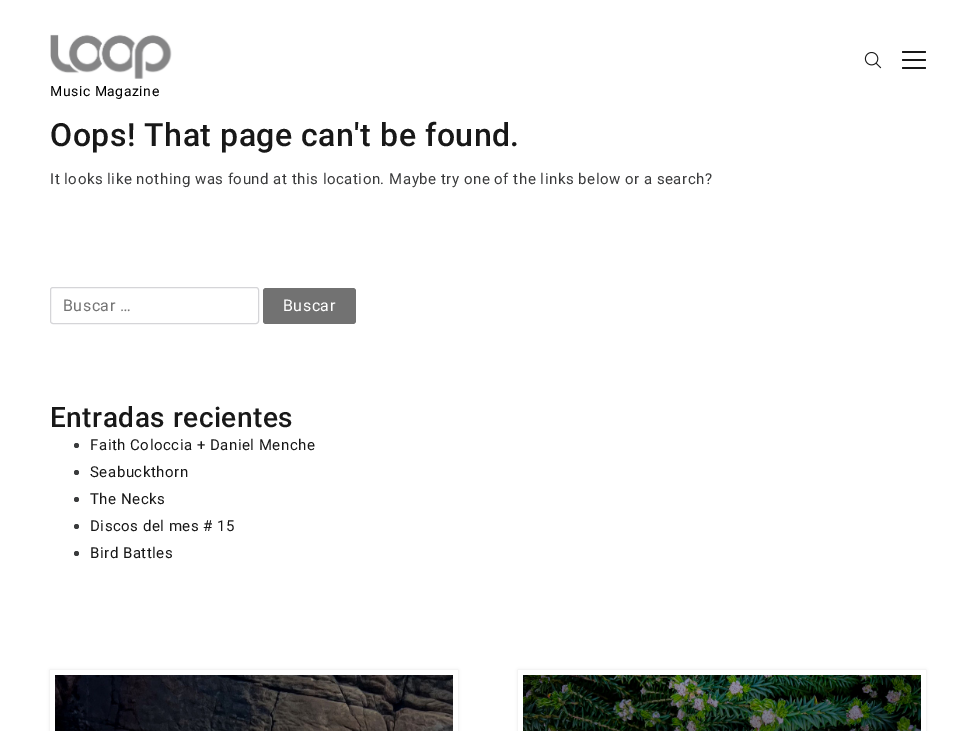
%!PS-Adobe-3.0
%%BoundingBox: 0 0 976 731
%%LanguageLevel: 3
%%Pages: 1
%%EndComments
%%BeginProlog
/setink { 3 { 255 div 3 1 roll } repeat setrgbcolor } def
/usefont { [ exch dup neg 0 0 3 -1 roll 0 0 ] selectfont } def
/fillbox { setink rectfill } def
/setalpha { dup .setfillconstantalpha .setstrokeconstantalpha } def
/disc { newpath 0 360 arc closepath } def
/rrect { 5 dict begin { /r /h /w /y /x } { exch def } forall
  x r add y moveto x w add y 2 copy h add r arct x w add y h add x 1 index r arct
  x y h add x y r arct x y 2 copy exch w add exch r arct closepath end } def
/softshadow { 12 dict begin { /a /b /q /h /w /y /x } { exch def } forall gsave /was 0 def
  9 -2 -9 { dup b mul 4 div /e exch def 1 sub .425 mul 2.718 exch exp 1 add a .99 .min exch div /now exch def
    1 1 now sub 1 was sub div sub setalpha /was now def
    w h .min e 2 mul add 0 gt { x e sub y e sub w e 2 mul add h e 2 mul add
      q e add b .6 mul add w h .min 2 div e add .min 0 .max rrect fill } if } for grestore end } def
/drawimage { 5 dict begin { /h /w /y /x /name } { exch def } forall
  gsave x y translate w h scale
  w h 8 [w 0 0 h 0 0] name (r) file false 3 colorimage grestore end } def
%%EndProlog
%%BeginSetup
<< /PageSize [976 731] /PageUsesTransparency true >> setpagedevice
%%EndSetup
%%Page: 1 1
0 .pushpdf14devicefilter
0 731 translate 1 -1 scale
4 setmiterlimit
0 0 976 731 255 255 255 fillbox
(assets/img1.rgb) 864 52 18 17 drawimage
24 24 24 setink
902 51 24 2 1 rrect fill
902 59 24 2 1 rrect fill
902 67 24 2 1 rrect fill
(assets/img2.rgb) 50 34 122 45 drawimage
/Roboto-Regular 14 usefont
0 0 0 setink
50 96 moveto 0.53 0 (Music Magazine) ashow
/Roboto-Medium 32 usefont
24 24 24 setink
50 146 moveto 0.53 0 (Oops! That page can't be found.) ashow
/Roboto-Regular 15 usefont
58 59 60 setink
50 184 moveto 0.53 0 (It looks like nothing was found at this location. Maybe try one of the links below or a search?) ashow
213 213 216 setink
50.5 287.5 208 36 2.5 rrect stroke
/Roboto-Regular 16 usefont
117 117 117 setink
63 311 moveto 0.5 0 (Buscar …) ashow
114 114 114 setink
263 288 93 36 3 rrect fill
255 255 255 setink
283 311 moveto 0.5 0 (Buscar) ashow
/Roboto-Medium 28 usefont
24 24 24 setink
50 427 moveto 0.53 0 (Entradas recientes) ashow
58 59 60 setink
76.5 445.5 2.5 disc fill
/Roboto-Regular 15 usefont
24 24 24 setink
90 450 moveto 0.53 0 (Faith Coloccia + Daniel Menche) ashow
58 59 60 setink
76.5 472.5 2.5 disc fill
24 24 24 setink
90 477 moveto 0.53 0 (Seabuckthorn) ashow
58 59 60 setink
76.5 499.5 2.5 disc fill
24 24 24 setink
90 504 moveto 0.53 0 (The Necks) ashow
58 59 60 setink
76.5 526.5 2.5 disc fill
24 24 24 setink
90 531 moveto 0.53 0 (Discos del mes # 15) ashow
58 59 60 setink
76.5 553.5 2.5 disc fill
24 24 24 setink
90 558 moveto 0.53 0 (Bird Battles) ashow
gsave
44 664 moveto 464 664 lineto 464 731 lineto 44 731 lineto closepath 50 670 moveto 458 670 lineto 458 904 lineto 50 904 lineto closepath eoclip newpath
66 65 78 setink
50 670 408 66 0 1.5 0.15 softshadow
grestore
(assets/img3.rgb) 55 675 398 56 drawimage
gsave
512 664 moveto 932 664 lineto 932 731 lineto 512 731 lineto closepath 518 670 moveto 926 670 lineto 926 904 lineto 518 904 lineto closepath eoclip newpath
66 65 78 setink
518 670 408 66 0 1.5 0.15 softshadow
grestore
(assets/img4.rgb) 523 675 398 56 drawimage
.poppdf14devicefilter showpage
%%EOF
